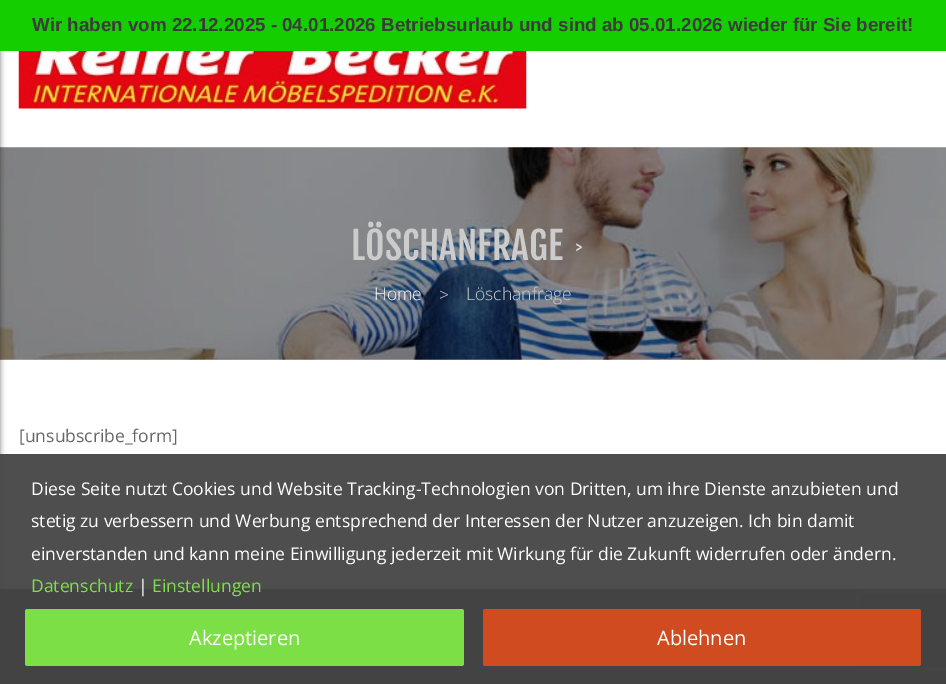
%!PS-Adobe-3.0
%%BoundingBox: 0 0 946 684
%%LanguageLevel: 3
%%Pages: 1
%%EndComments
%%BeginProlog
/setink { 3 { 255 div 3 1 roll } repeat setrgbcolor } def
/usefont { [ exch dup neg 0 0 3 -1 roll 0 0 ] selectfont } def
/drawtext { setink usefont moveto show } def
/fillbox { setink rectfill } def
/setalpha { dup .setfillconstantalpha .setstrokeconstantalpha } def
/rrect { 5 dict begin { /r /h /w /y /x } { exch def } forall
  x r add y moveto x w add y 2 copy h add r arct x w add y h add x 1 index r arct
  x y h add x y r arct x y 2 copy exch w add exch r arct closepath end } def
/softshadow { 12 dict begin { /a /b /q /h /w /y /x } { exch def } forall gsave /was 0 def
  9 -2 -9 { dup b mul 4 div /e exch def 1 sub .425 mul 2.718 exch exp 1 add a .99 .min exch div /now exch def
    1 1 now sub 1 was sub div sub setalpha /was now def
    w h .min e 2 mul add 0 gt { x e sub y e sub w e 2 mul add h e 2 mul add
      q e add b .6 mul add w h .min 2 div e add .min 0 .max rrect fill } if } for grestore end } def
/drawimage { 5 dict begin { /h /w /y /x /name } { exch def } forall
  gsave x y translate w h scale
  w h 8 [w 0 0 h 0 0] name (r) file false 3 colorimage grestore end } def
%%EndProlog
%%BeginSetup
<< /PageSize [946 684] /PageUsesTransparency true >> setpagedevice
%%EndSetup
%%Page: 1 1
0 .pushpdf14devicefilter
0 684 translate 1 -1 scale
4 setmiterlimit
0 0 946 684 255 255 255 fillbox
(assets/img2.rgb) 0 147 946 213 drawimage
0 589 946 95 47 47 47 fillbox
0 0 0 setink
-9 -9 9 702 0 3 0.5 softshadow
0 0 946 51 20 206 0 fillbox
(Wir haben vom 22.12.2025 - 04.01.2026 Betriebsurlaub und sind ab 05.01.2026 wieder für Sie bereit!) 32 31 /LiberationSans-Bold 18.75 59 59 59 drawtext
(assets/img1.rgb) 18 51 509 58 drawimage
(LÖSCHANFRAGE) 351 260 /FjallaOne-Regular 37.5 204 204 204 drawtext
(>) 576 254 /FjallaOne-Regular 17.5 218 218 218 drawtext
(Home) 374 300 /OpenSans-Light 17.5 255 255 255 drawtext
(>) 439 301 /OpenSans-Light 17.5 218 218 218 drawtext
(Löschanfrage) 466 300 /OpenSans-Light 17.5 204 204 204 drawtext
([unsubscribe_form]) 19 442 /OpenSans-Regular 17.5 102 102 102 drawtext
gsave
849 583 moveto 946 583 lineto 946 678 lineto 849 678 lineto closepath 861.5 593 moveto 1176.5 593 lineto 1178 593 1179 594 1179 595.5 curveto 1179 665.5 lineto 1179 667 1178 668 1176.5 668 curveto 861.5 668 lineto 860 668 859 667 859 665.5 curveto 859 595.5 lineto 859 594 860 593 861.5 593 curveto closepath eoclip newpath
128 128 128 setink
859 593 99 75 2.5 3 1 softshadow
grestore
0.95 setalpha
0 454 946 230 68 68 68 fillbox
1 setalpha
(Diese Seite nutzt Cookies und Website Tracking-Technologien von Dritten, um ihre Dienste anzubieten und) 31 495 /OpenSans-Regular 17.5 255 255 255 drawtext
(stetig zu verbessern und Werbung entsprechend der Interessen der Nutzer anzuzeigen. Ich bin damit) 31 527 /OpenSans-Regular 17.5 255 255 255 drawtext
(einverstanden und kann meine Einwilligung jederzeit mit Wirkung für die Zukunft widerrufen oder ändern.) 31 560 /OpenSans-Regular 17.5 255 255 255 drawtext
(Datenschutz) 31 592 /OpenSans-Regular 17.5 125 224 71 drawtext
(|) 138 592 /OpenSans-Regular 17.5 255 255 255 drawtext
(Einstellungen) 152 592 /OpenSans-Regular 17.5 125 224 71 drawtext
124 223 70 setink
25 609 439 57 2.5 rrect fill
(Akzeptieren) 189 645 /OpenSans-Regular 20 255 255 255 drawtext
208 76 32 setink
483 609 438 57 2.5 rrect fill
(Ablehnen) 657 645 /OpenSans-Regular 20 255 255 255 drawtext
.poppdf14devicefilter showpage
%%EOF
